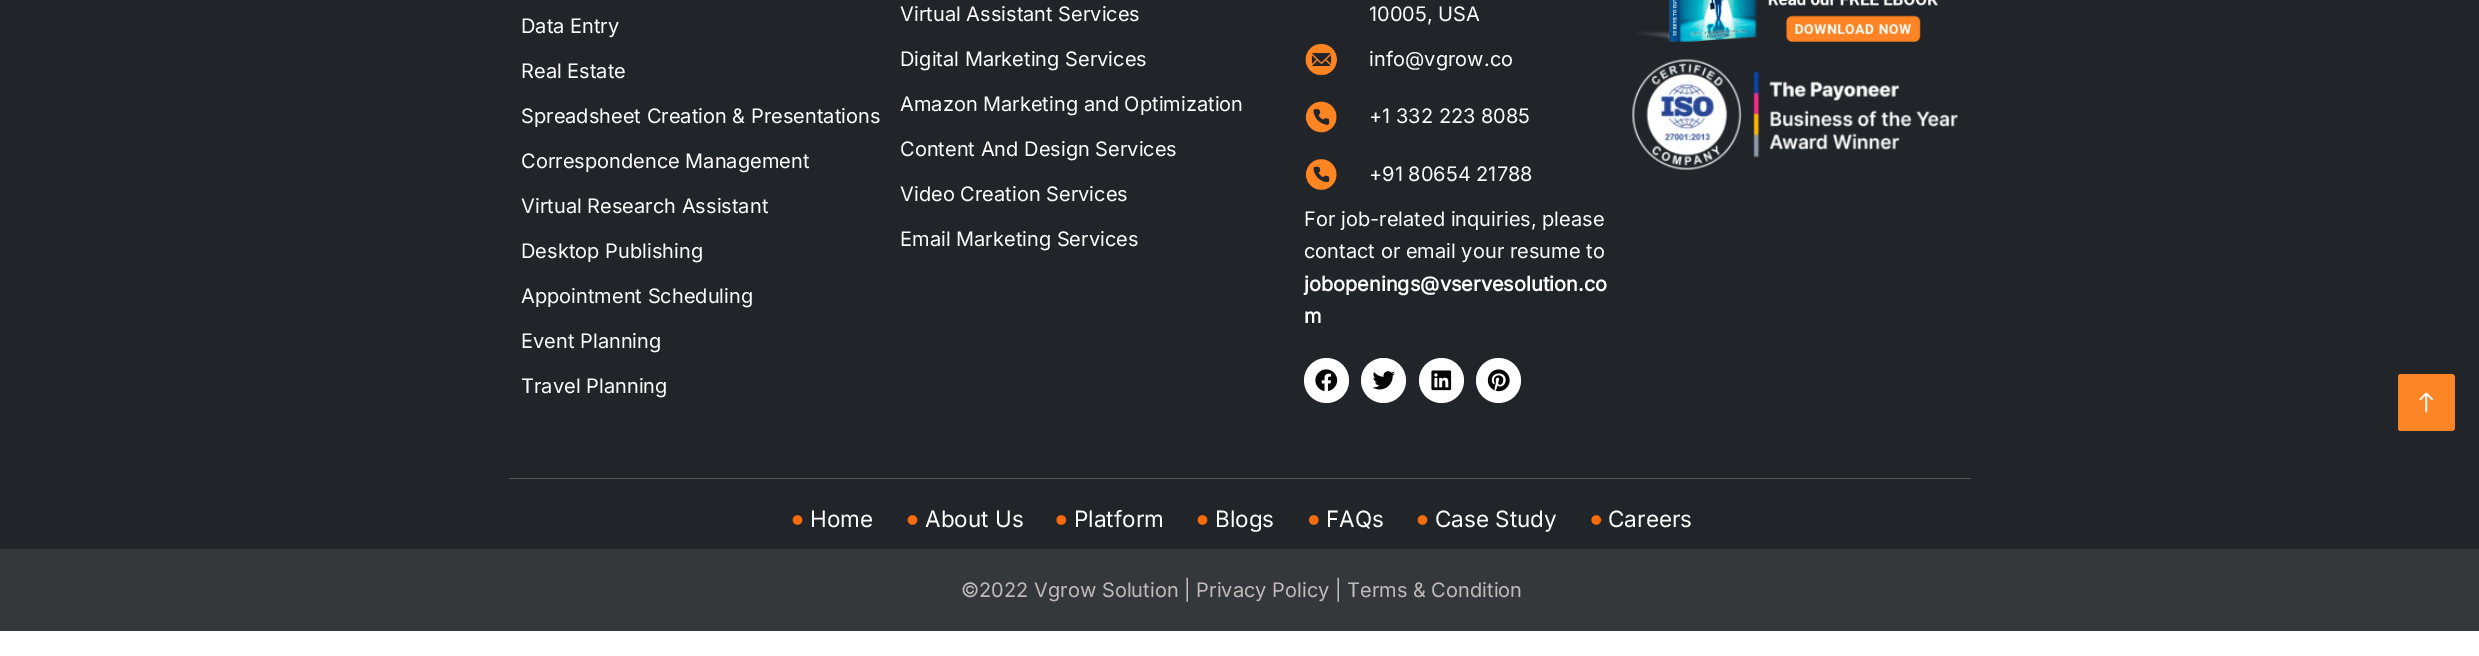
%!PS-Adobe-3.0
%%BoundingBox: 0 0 2479 656
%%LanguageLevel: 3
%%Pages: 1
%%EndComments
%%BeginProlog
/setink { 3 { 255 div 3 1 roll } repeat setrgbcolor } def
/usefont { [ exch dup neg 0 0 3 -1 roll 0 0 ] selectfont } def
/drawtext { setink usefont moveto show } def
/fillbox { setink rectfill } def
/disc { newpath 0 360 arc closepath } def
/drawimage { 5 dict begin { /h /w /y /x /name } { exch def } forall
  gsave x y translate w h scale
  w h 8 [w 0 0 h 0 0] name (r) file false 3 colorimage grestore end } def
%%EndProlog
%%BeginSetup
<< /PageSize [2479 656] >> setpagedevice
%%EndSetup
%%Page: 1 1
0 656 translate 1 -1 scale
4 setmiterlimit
0 0 2479 656 255 255 255 fillbox
0 0 2479 549 33 37 41 fillbox
(Data Entry) 521 33 /Inter-Regular 20 255 255 255 drawtext
(Real Estate) 521 78 /Inter-Regular 20 255 255 255 drawtext
(Spreadsheet Creation & Presentations) 521 123 /Inter-Regular 20 255 255 255 drawtext
(Correspondence Management) 521 168 /Inter-Regular 20 255 255 255 drawtext
(Virtual Research Assistant) 521 213 /Inter-Regular 20 255 255 255 drawtext
(Desktop Publishing) 521 258 /Inter-Regular 20 255 255 255 drawtext
(Appointment Scheduling) 521 303 /Inter-Regular 20 255 255 255 drawtext
(Event Planning) 521 348 /Inter-Regular 20 255 255 255 drawtext
(Travel Planning) 521 393 /Inter-Regular 20 255 255 255 drawtext
(Virtual Assistant Services) 900 21 /Inter-Regular 20 255 255 255 drawtext
(Digital Marketing Services) 900 66 /Inter-Regular 20 255 255 255 drawtext
(Amazon Marketing and Optimization) 900 111 /Inter-Regular 20 255 255 255 drawtext
(Content And Design Services) 900 156 /Inter-Regular 20 255 255 255 drawtext
(Video Creation Services) 900 201 /Inter-Regular 20 255 255 255 drawtext
(Email Marketing Services) 900 246 /Inter-Regular 20 255 255 255 drawtext
(10005, USA) 1369 21 /Inter-Regular 20 255 255 255 drawtext
(assets/img1.rgb) 1305 43 33 33 drawimage
(info@vgrow.co) 1369 66 /Inter-Regular 20 255 255 255 drawtext
(assets/img2.rgb) 1305 101 32 32 drawimage
(+1 332 223 8085) 1369 123 /Inter-Regular 20 255 255 255 drawtext
(assets/img3.rgb) 1305 159 32 31 drawimage
(+91 80654 21788) 1369 181 /Inter-Regular 20 255 255 255 drawtext
(For job-related inquiries, please) 1304 226 /Inter-Regular 20 255 255 255 drawtext
(contact or email your resume to) 1304 258 /Inter-Regular 20 255 255 255 drawtext
(jobopenings@vservesolution.co) 1304 291 /Inter-Bold 20 255 255 255 drawtext
(m) 1304 323 /Inter-Bold 20 255 255 255 drawtext
1326.5 380.5 22.5 disc fill
(assets/img4.rgb) 1315 369 23 22 drawimage
1383.5 380.5 22.5 disc fill
(assets/img5.rgb) 1372 371 23 19 drawimage
1441.5 380.5 22.5 disc fill
(assets/img6.rgb) 1431 370 21 21 drawimage
1498.5 380.5 22.5 disc fill
(assets/img7.rgb) 1487 369 23 23 drawimage
(assets/img8.rgb) 1636 0 302 42 drawimage
(assets/img9.rgb) 1632 59 326 111 drawimage
509 478 1462 1 86 86 86 fillbox
(assets/img10.rgb) 792 515 11 10 drawimage
(Home) 810 527 /Inter-Regular 22.5 255 255 255 drawtext
(assets/img10.rgb) 907 515 11 10 drawimage
(About Us) 925 527 /Inter-Regular 22.5 255 255 255 drawtext
(assets/img11.rgb) 1056 515 11 10 drawimage
(Platform) 1074 527 /Inter-Regular 22.5 255 255 255 drawtext
(assets/img10.rgb) 1197 515 11 10 drawimage
(Blogs) 1215 527 /Inter-Regular 22.5 255 255 255 drawtext
(assets/img12.rgb) 1308 515 11 10 drawimage
(FAQs) 1326 527 /Inter-Regular 22.5 255 255 255 drawtext
(assets/img10.rgb) 1417 515 11 10 drawimage
(Case Study) 1435 527 /Inter-Regular 22.5 255 255 255 drawtext
(assets/img11.rgb) 1591 515 11 10 drawimage
(Careers) 1608 527 /Inter-Regular 22.5 255 255 255 drawtext
0 549 2479 82 52 56 59 fillbox
(©2022 Vgrow Solution | Privacy Policy | Terms & Condition) 961 597 /Inter-Regular 20 194 186 186 drawtext
253 133 38 setink
2455 378 moveto 2455 428 lineto 2455 430 2453 431 2451 431 curveto 2401 431 lineto 2399 431 2398 430 2398 428 curveto 2398 378 lineto 2398 375 2399 374 2401 374 curveto 2451 374 lineto 2453 374 2455 375 2455 378 curveto closepath fill
(assets/img13.rgb) 2419 392 15 21 drawimage
showpage
%%EOF
